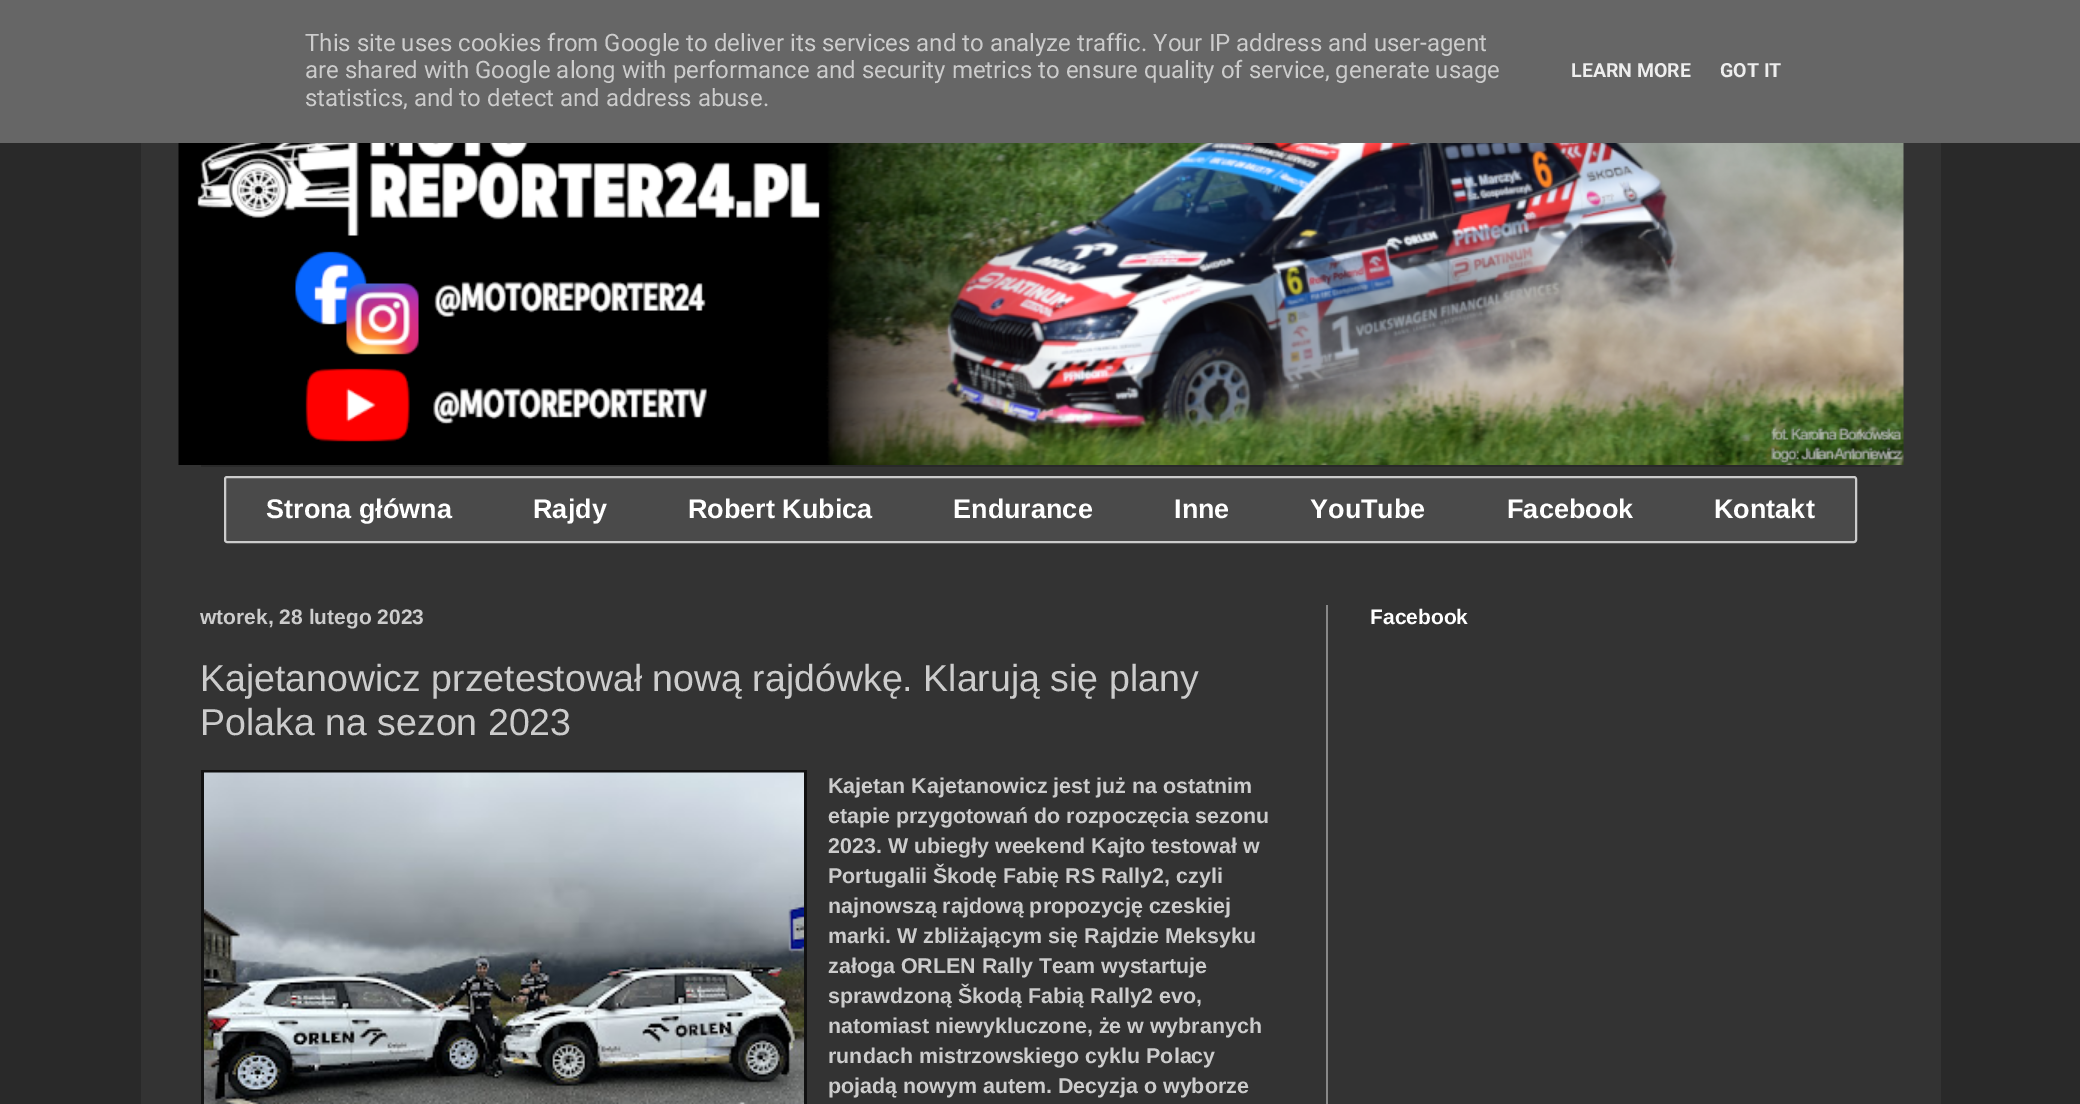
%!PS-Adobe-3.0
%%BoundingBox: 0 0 2080 1104
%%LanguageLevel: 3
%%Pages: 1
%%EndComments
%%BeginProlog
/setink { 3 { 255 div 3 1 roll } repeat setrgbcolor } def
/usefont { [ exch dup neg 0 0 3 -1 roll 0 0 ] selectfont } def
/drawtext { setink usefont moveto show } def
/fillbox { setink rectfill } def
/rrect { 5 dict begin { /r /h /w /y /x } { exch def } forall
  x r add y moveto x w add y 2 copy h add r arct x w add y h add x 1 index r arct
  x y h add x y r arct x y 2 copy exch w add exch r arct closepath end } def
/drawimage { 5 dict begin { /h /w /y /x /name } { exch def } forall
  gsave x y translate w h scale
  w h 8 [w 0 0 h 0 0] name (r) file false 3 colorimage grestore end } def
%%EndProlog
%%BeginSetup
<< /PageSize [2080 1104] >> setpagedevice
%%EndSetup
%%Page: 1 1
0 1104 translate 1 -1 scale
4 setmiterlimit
0 0 2080 1104 41 41 41 fillbox
0 0 2080 143 102 102 102 fillbox
(This site uses cookies from Google to deliver its services and to analyze traffic. Your IP address and user-agent) 305 51 /Roboto-Regular 24 204 204 204 drawtext
(are shared with Google along with performance and security metrics to ensure quality of service, generate usage) 305 78 /Roboto-Regular 24 204 204 204 drawtext
(statistics, and to detect and address abuse.) 305 106 /Roboto-Regular 24 204 204 204 drawtext
(LEARN MORE) 1571 77 /Roboto-Bold 19.5 238 238 238 drawtext
(GOT IT) 1720 77 /Roboto-Bold 19.5 238 238 238 drawtext
141 143 1800 961 51 51 51 fillbox
(assets/img1.rgb) 178 143 1726 322 drawimage
201 465 1680 2 41 41 41 fillbox
74 74 74 setink
225 477 1631 65 2 rrect gsave fill grestore
204 204 204 setink
2 setlinewidth
stroke
(Strona główna) 266 518 /LiberationSans-Bold 27 255 255 255 drawtext
(Rajdy) 533 518 /LiberationSans-Bold 27 255 255 255 drawtext
(Robert Kubica) 688 518 /LiberationSans-Bold 27 255 255 255 drawtext
(Endurance) 953 518 /LiberationSans-Bold 27 255 255 255 drawtext
(Inne) 1174 518 /LiberationSans-Bold 27 255 255 255 drawtext
(YouTube) 1310 518 /LiberationSans-Bold 27 255 255 255 drawtext
(Facebook) 1507 518 /LiberationSans-Bold 27 255 255 255 drawtext
(Kontakt) 1714 518 /LiberationSans-Bold 27 255 255 255 drawtext
1326 605 2 499 136 136 136 fillbox
(wtorek, 28 lutego 2023) 200 624 /LiberationSans-Bold 21 204 204 204 drawtext
(Kajetanowicz przetestował nową rajdówkę. Klarują się plany) 200 691 /LiberationSans-Regular 37.5 204 204 204 drawtext
(Polaka na sezon 2023) 200 735 /LiberationSans-Regular 37.5 204 204 204 drawtext
201 770 606 334 17 17 17 fillbox
(assets/img2.rgb) 204 772 600 332 drawimage
(Kajetan Kajetanowicz jest już na ostatnim) 828 793 /LiberationSans-Bold 21.45 204 204 204 drawtext
(etapie przygotowań do rozpoczęcia sezonu) 828 823 /LiberationSans-Bold 21.45 204 204 204 drawtext
(2023. W ubiegły weekend Kajto testował w) 828 853 /LiberationSans-Bold 21.45 204 204 204 drawtext
(Portugalii Škodę Fabię RS Rally2, czyli) 828 883 /LiberationSans-Bold 21.45 204 204 204 drawtext
(najnowszą rajdową propozycję czeskiej) 828 913 /LiberationSans-Bold 21.45 204 204 204 drawtext
(marki. W zbliżającym się Rajdzie Meksyku) 828 943 /LiberationSans-Bold 21.45 204 204 204 drawtext
(załoga ORLEN Rally Team wystartuje) 828 973 /LiberationSans-Bold 21.45 204 204 204 drawtext
(sprawdzoną Škodą Fabią Rally2 evo,) 828 1003 /LiberationSans-Bold 21.45 204 204 204 drawtext
(natomiast niewykluczone, że w wybranych) 828 1033 /LiberationSans-Bold 21.45 204 204 204 drawtext
(rundach mistrzowskiego cyklu Polacy) 828 1063 /LiberationSans-Bold 21.45 204 204 204 drawtext
(pojadą nowym autem. Decyzja o wyborze) 828 1093 /LiberationSans-Bold 21.45 204 204 204 drawtext
(Facebook) 1370 624 /LiberationSans-Bold 21 255 255 255 drawtext
showpage
%%EOF
